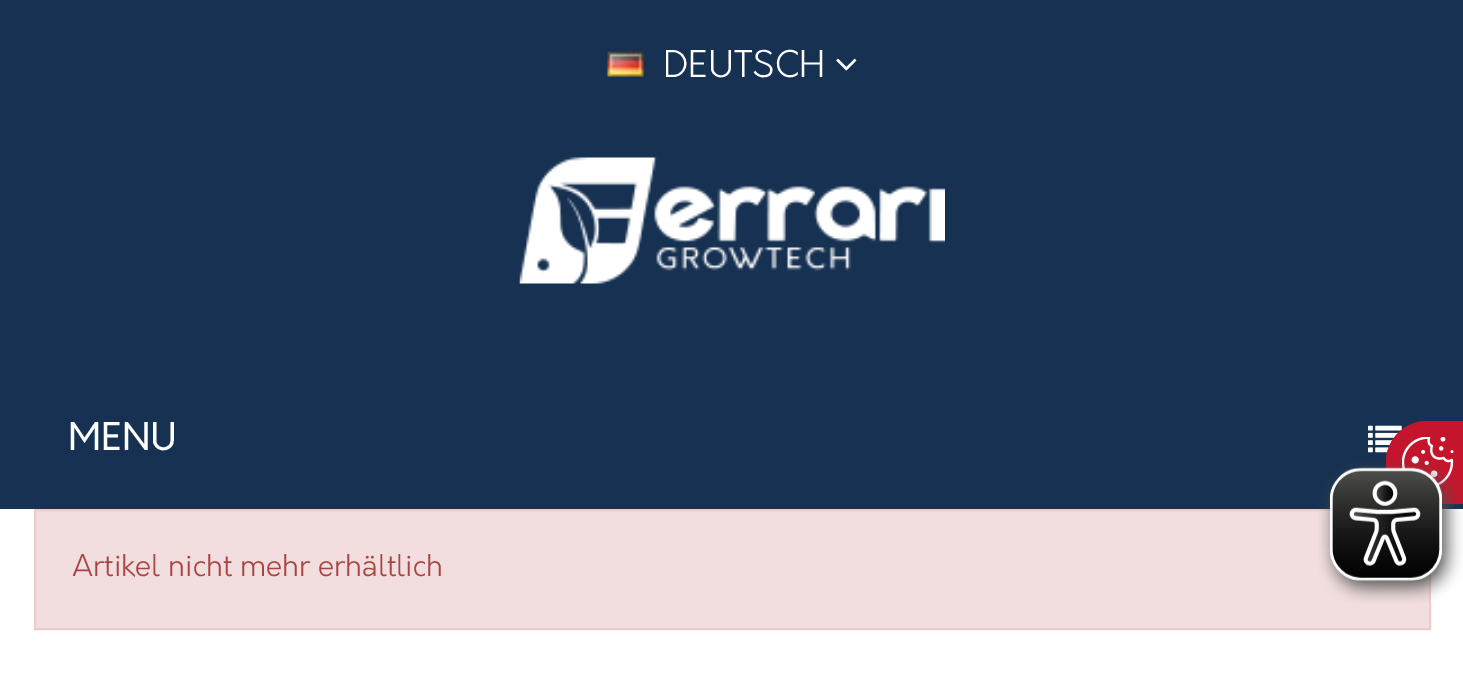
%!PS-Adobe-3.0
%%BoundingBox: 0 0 1463 683
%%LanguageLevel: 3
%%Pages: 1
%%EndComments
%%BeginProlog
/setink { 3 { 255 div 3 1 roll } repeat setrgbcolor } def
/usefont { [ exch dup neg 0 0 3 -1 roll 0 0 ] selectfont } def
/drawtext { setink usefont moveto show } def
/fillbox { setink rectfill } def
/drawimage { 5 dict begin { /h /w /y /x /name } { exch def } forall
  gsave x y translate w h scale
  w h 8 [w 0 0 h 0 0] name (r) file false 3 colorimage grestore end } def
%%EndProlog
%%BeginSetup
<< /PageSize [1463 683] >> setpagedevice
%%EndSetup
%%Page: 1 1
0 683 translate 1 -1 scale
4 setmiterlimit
0 0 1463 683 255 255 255 fillbox
0 0 1463 509 22 49 81 fillbox
(assets/img1.rgb) 607 51 37 26 drawimage
(DEUTSCH) 663 77 /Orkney-Light 36 255 255 255 drawtext
(assets/img2.rgb) 836 58 21 13 drawimage
(assets/img3.rgb) 519 157 426 127 drawimage
/Orkney-Bold 36 usefont
68 450 moveto 1 0 (MENU) ashow
(assets/img4.rgb) 1368 425 34 28 drawimage
197 21 45 setink
1427.5 421 moveto 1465 421 lineto 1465 504 lineto 1427.5 504 lineto 1404.5 504 1386 485.5 1386 462.5 curveto 1386 439.5 1404.5 421 1427.5 421 curveto closepath fill
1428 421 moveto 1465 421 lineto 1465 504 lineto 1428 504 lineto 1405 504 1386 485 1386 462 curveto 1386 439 1405 421 1428 421 curveto closepath 1428 425 moveto 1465 425 lineto 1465 500 lineto 1428 500 lineto 1407 500 1390 483 1390 462 curveto 1390 442 1407 425 1428 425 curveto closepath eofill
(assets/img5.rgb) 1402 437 52 49 drawimage
242 222 222 setink
35 510 moveto 1430 510 lineto 1430 629 lineto 35 629 lineto closepath gsave fill grestore
235 204 204 setink
2 setlinewidth
stroke
(Artikel nicht mehr erhältlich) 72 576 /Orkney-Light 29.25 169 68 66 drawtext
(assets/img6.rgb) 1318 459 145 144 drawimage
showpage
%%EOF
